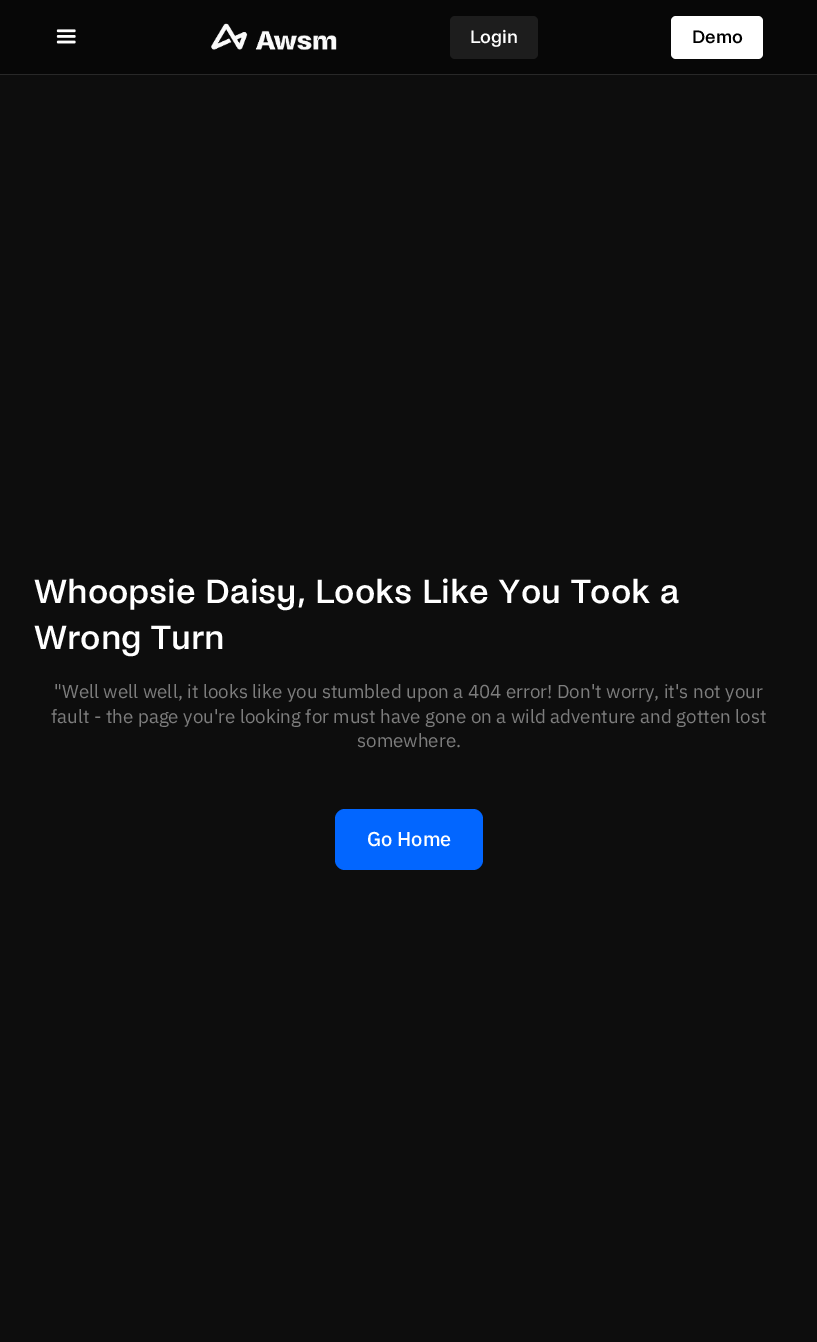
%!PS-Adobe-3.0
%%BoundingBox: 0 0 817 1342
%%LanguageLevel: 3
%%Pages: 1
%%EndComments
%%BeginProlog
/setink { 3 { 255 div 3 1 roll } repeat setrgbcolor } def
/usefont { [ exch dup neg 0 0 3 -1 roll 0 0 ] selectfont } def
/drawtext { setink usefont moveto show } def
/fillbox { setink rectfill } def
/rrect { 5 dict begin { /r /h /w /y /x } { exch def } forall
  x r add y moveto x w add y 2 copy h add r arct x w add y h add x 1 index r arct
  x y h add x y r arct x y 2 copy exch w add exch r arct closepath end } def
/drawimage { 5 dict begin { /h /w /y /x /name } { exch def } forall
  gsave x y translate w h scale
  w h 8 [w 0 0 h 0 0] name (r) file false 3 colorimage grestore end } def
%%EndProlog
%%BeginSetup
<< /PageSize [817 1342] >> setpagedevice
%%EndSetup
%%Page: 1 1
0 1342 translate 1 -1 scale
4 setmiterlimit
0 0 817 1342 7 7 7 fillbox
0 74 817 1 40 40 40 fillbox
(assets/img1.rgb) 56 29 20 15 drawimage
(assets/img2.rgb) 211 23 126 27 drawimage
29 29 29 setink
450 16 88 43 5 rrect fill
(Login) 470 43 /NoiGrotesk-Medium 18.75 255 255 255 drawtext
671 16 92 43 5 rrect fill
(Demo) 692 43 /NoiGrotesk-Medium 18.75 0 0 0 drawtext
0 75 817 1267 13 13 13 fillbox
(Whoopsie Daisy, Looks Like You Took a) 34 603 /NoiGrotesk-Medium 35 255 255 255 drawtext
(Wrong Turn) 34 649 /NoiGrotesk-Medium 35 255 255 255 drawtext
("Well well well, it looks like you stumbled upon a 404 error! Don't worry, it's not your) 54 698 /IBMPlexSansHebrew-Regular 18.75 125 125 125 drawtext
(fault - the page you're looking for must have gone on a wild adventure and gotten lost) 51 723 /IBMPlexSansHebrew-Regular 18.75 125 125 125 drawtext
(somewhere.) 357 747 /IBMPlexSansHebrew-Regular 18.75 125 125 125 drawtext
2 102 255 setink
335 809 148 61 10 rrect fill
(Go Home) 367 846 /IBMPlexSansHebrew-Medium 20 255 255 255 drawtext
showpage
%%EOF
